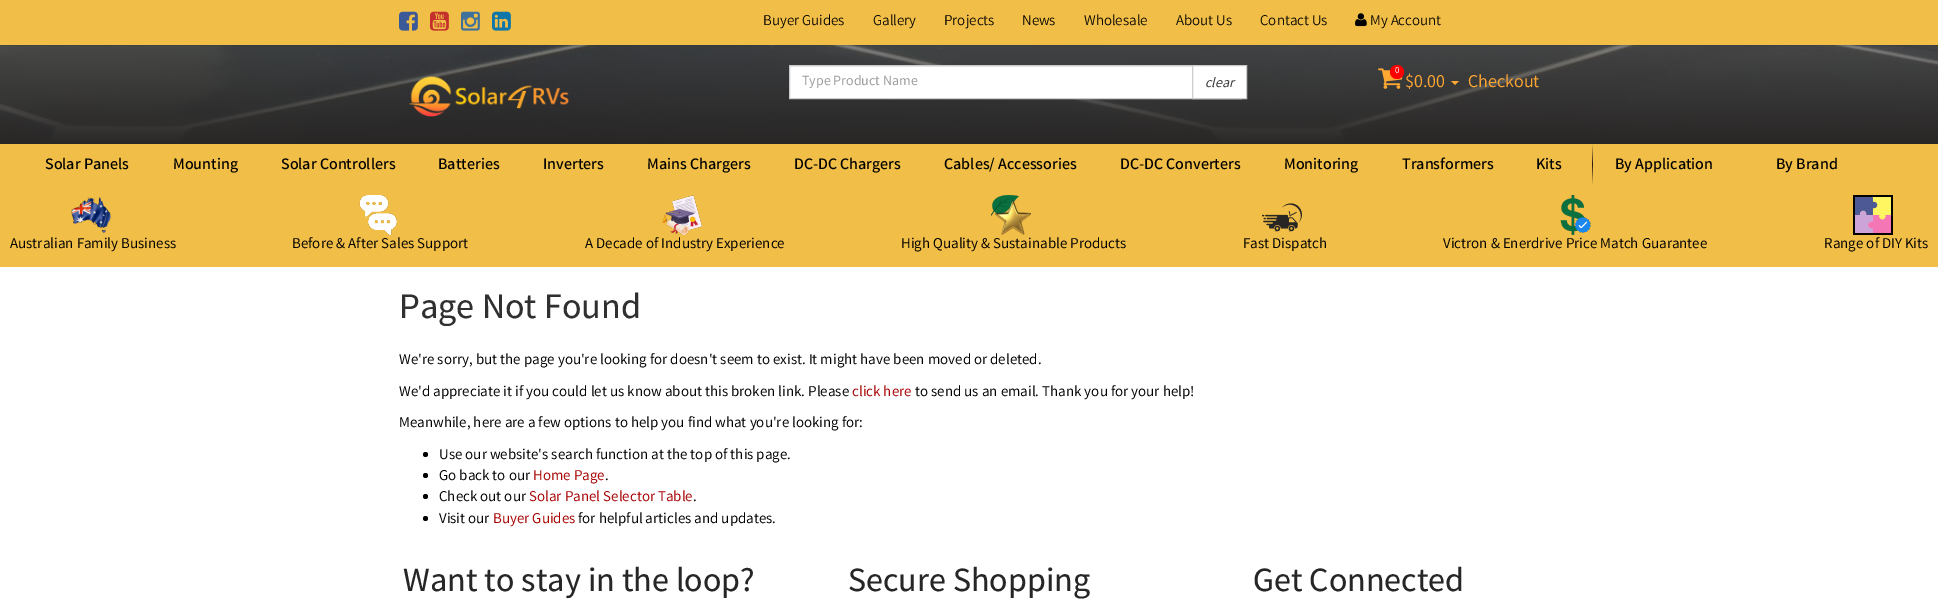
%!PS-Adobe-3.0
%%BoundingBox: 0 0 1938 612
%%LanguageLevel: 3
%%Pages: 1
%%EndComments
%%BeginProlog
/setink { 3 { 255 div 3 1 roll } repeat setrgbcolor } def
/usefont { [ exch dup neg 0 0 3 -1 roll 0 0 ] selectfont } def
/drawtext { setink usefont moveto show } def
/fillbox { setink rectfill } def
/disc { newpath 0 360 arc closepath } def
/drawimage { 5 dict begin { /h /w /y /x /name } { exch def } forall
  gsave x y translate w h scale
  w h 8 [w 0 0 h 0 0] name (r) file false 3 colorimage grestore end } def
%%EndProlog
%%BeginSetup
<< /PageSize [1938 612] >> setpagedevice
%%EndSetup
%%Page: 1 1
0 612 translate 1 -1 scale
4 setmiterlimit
0 0 1938 612 255 255 255 fillbox
0 0 1938 45 241 190 72 fillbox
(assets/img1.rgb) 399 11 19 20 drawimage
(assets/img2.rgb) 430 11 19 20 drawimage
(assets/img3.rgb) 461 11 19 20 drawimage
(assets/img4.rgb) 492 11 19 20 drawimage
(Buyer Guides) 763 25 /Varta-Light 15 0 0 0 drawtext
(Gallery) 873 25 /Varta-Light 15 0 0 0 drawtext
(Projects) 944 25 /Varta-Light 15 0 0 0 drawtext
(News) 1022 25 /Varta-Light 15 0 0 0 drawtext
(Wholesale) 1084 25 /Varta-Light 15 0 0 0 drawtext
(About Us) 1176 25 /Varta-Light 15 0 0 0 drawtext
(Contact Us) 1260 25 /Varta-Light 15 0 0 0 drawtext
(assets/img5.rgb) 1355 13 12 14 drawimage
(My Account) 1370 25 /Varta-Light 15 0 0 0 drawtext
(assets/img6.rgb) 0 45 1938 99 drawimage
(assets/img7.rgb) 408 76 161 41 drawimage
790 67 402 31 255 255 255 fillbox
790 66 402 1 236 236 236 fillbox
204 204 204 setink
789.5 65.5 452 33 rectstroke
(Type Product Name) 802 85 /Varta-Regular 14 153 153 153 drawtext
255 255 255 setink
1192.5 65.5 moveto 1246.5 65.5 lineto 1246.5 98.5 lineto 1192.5 98.5 lineto closepath gsave fill grestore
204 204 204 setink
stroke
(clear) 1205 87 /Varta-Italic 14 48 48 48 drawtext
(assets/img8.rgb) 1378 68 25 21 drawimage
255 0 0 setink
1397 72 7 disc fill
(0) 1395 73 /Varta-Regular 9 255 255 255 drawtext
($0.00) 1405 87 /Varta-Regular 18 255 167 51 drawtext
1451 81 moveto 1459 81 lineto 1455 85 lineto closepath fill
(Checkout) 1468 87 /Varta-Regular 18 255 167 51 drawtext
0 144 1938 123 241 190 72 fillbox
gsave 1592 144 moveto 1593 144 lineto 1593 185 lineto 1592 185 lineto closepath clip newpath
<< /ShadingType 2 /ColorSpace /DeviceRGB /Coords [1593 144 1593 185] /Extend [true true] /Function << /FunctionType 3 /Domain [0 1] /Functions [<< /FunctionType 2 /Domain [0 1] /C0 [0.945 0.745 0.282] /C1 [0.157 0.078 0.078] /N 1 >> << /FunctionType 2 /Domain [0 1] /C0 [0.157 0.078 0.078] /C1 [0.945 0.745 0.282] /N 1 >>] /Bounds [0.5] /Encode [0 1 0 1] >> >> shfill grestore
(Solar Panels) 45 169 /Varta-SemiBold 16 0 0 0 drawtext
(Mounting) 173 169 /Varta-SemiBold 16 0 0 0 drawtext
(Solar Controllers) 281 169 /Varta-SemiBold 16 0 0 0 drawtext
(Batteries) 438 169 /Varta-SemiBold 16 0 0 0 drawtext
(Inverters) 543 169 /Varta-SemiBold 16 0 0 0 drawtext
(Mains Chargers) 647 169 /Varta-SemiBold 16 0 0 0 drawtext
(DC-DC Chargers) 794 169 /Varta-SemiBold 16 0 0 0 drawtext
(Cables/ Accessories) 944 169 /Varta-SemiBold 16 0 0 0 drawtext
(DC-DC Converters) 1120 169 /Varta-SemiBold 16 0 0 0 drawtext
(Monitoring) 1284 169 /Varta-SemiBold 16 0 0 0 drawtext
(Transformers) 1402 169 /Varta-SemiBold 16 0 0 0 drawtext
(Kits) 1536 169 /Varta-SemiBold 16 0 0 0 drawtext
(By Application) 1615 169 /Varta-SemiBold 16 0 0 0 drawtext
(By Brand) 1776 169 /Varta-SemiBold 16 0 0 0 drawtext
(assets/img9.rgb) 71 197 40 36 drawimage
(Australian Family Business) 10 248 /Varta-Regular 15 0 0 0 drawtext
(assets/img10.rgb) 359 195 38 40 drawimage
(Before & After Sales Support) 292 248 /Varta-Regular 15 0 0 0 drawtext
(assets/img11.rgb) 662 195 40 40 drawimage
(A Decade of Industry Experience) 585 248 /Varta-Regular 15 0 0 0 drawtext
(assets/img12.rgb) 991 195 40 40 drawimage
(High Quality & Sustainable Products) 901 248 /Varta-Regular 15 0 0 0 drawtext
(assets/img13.rgb) 1262 203 40 29 drawimage
(Fast Dispatch) 1243 248 /Varta-Regular 15 0 0 0 drawtext
(assets/img14.rgb) 1560 195 31 40 drawimage
(Victron & Enerdrive Price Match Guarantee) 1443 248 /Varta-Regular 15 0 0 0 drawtext
(assets/img15.rgb) 1853 195 40 40 drawimage
(Range of DIY Kits) 1824 248 /Varta-Regular 15 0 0 0 drawtext
(Page Not Found) 399 318 /Varta-Medium 36 48 48 48 drawtext
(We're sorry, but the page you're looking for doesn't seem to exist. It might have been moved or deleted.) 399 364 /Varta-Regular 15 0 0 0 drawtext
(We'd appreciate it if you could let us know about this broken link. Please) 399 396 /Varta-Regular 15 0 0 0 drawtext
(click here) 852 396 /Varta-Regular 15 167 0 0 drawtext
(to send us an email. Thank you for your help!) 915 396 /Varta-Regular 15 0 0 0 drawtext
(Meanwhile, here are a few options to help you find what you're looking for:) 399 427 /Varta-Regular 15 0 0 0 drawtext
425.5 454.5 2.5 disc fill
(Use our website's search function at the top of this page.) 439 459 /Varta-Regular 15 0 0 0 drawtext
425.5 475.5 2.5 disc fill
(Go back to our) 439 480 /Varta-Regular 15 0 0 0 drawtext
(Home Page) 533 480 /Varta-Regular 15 167 0 0 drawtext
(.) 605 480 /Varta-Regular 15 0 0 0 drawtext
425.5 496.5 2.5 disc fill
(Check out our) 439 501 /Varta-Regular 15 0 0 0 drawtext
(Solar Panel Selector Table) 529 501 /Varta-Regular 15 167 0 0 drawtext
(.) 693 501 /Varta-Regular 15 0 0 0 drawtext
425.5 518.5 2.5 disc fill
(Visit our) 439 523 /Varta-Regular 15 0 0 0 drawtext
(Buyer Guides) 493 523 /Varta-Regular 15 167 0 0 drawtext
(for helpful articles and updates.) 578 523 /Varta-Regular 15 0 0 0 drawtext
(Want to stay in the loop?) 403 591 /Varta-Medium 34 38 38 38 drawtext
(Secure Shopping) 848 591 /Varta-Medium 34 38 38 38 drawtext
(Get Connected) 1253 591 /Varta-Medium 34 38 38 38 drawtext
showpage
%%EOF
